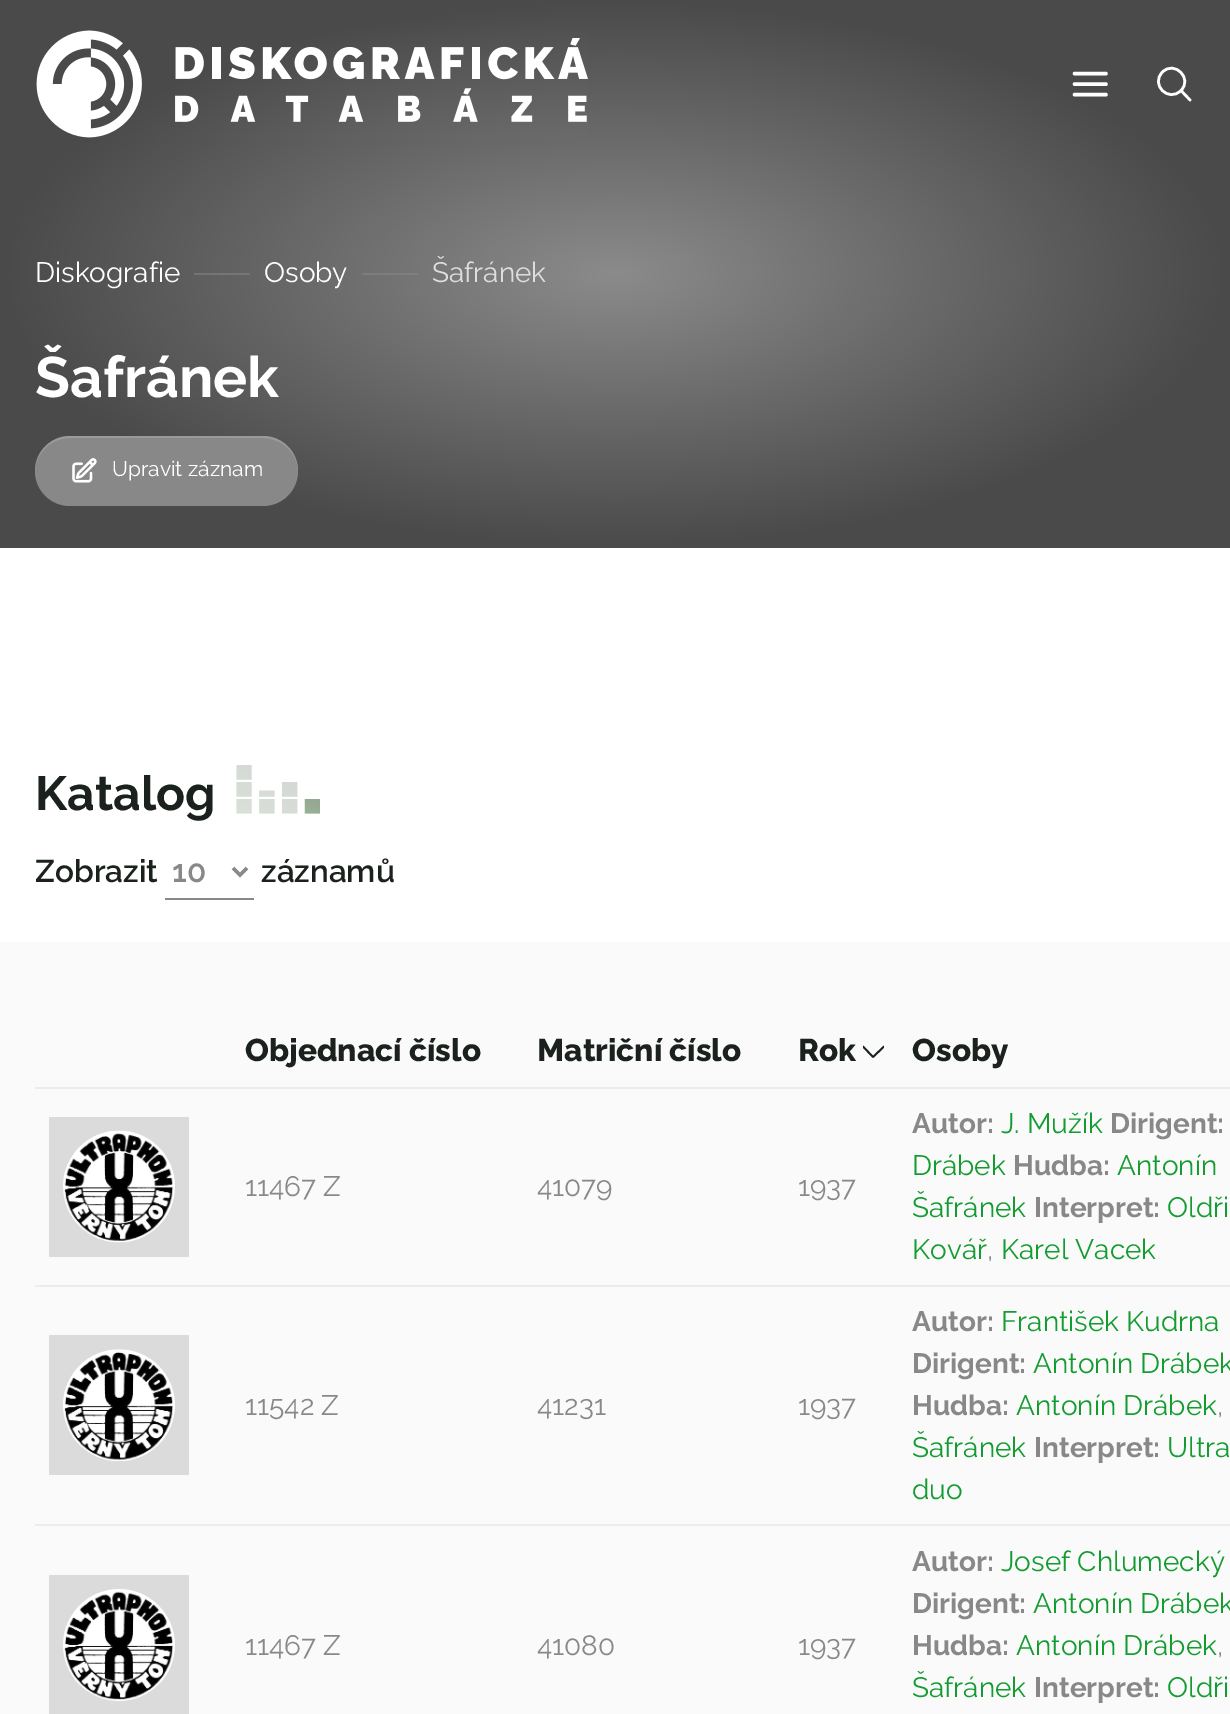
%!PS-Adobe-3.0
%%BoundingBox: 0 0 1230 1714
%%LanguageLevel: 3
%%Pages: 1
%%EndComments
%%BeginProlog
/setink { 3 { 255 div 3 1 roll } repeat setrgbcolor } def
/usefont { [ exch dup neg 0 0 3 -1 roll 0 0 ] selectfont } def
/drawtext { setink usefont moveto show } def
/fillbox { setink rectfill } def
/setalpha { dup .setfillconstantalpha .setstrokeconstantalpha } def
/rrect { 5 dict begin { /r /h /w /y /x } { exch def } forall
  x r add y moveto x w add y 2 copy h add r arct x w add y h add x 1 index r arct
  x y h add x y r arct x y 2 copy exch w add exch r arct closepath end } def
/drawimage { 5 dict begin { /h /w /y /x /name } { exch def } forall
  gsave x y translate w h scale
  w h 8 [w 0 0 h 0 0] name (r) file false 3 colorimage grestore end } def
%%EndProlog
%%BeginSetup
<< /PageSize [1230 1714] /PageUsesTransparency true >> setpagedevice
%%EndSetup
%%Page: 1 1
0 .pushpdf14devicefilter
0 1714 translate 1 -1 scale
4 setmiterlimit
0 0 1230 1714 255 255 255 fillbox
gsave 0 0 moveto 1230 0 lineto 1230 548 lineto 0 548 lineto closepath clip newpath 615 274 translate 615 274 scale
<< /ShadingType 3 /ColorSpace /DeviceRGB /Coords [0 0 0 0 0 1] /Extend [true true] /Function << /FunctionType 2 /Domain [0 1] /C0 [0.545 0.545 0.545] /C1 [0.29 0.29 0.29] /N 1 >> >> shfill grestore
(assets/img1.rgb) 36 30 552 108 drawimage
3.5 setlinewidth
1 setlinecap
1 setlinejoin
1074.5 84 moveto 1106 84 lineto 1074.5 73.5 moveto 1106 73.5 lineto 1074.5 94.5 moveto 1106 94.5 lineto stroke
2.6 setlinewidth
1190 100 moveto 1181 90.5 lineto 1181 90.5 moveto 1193 78.5 1174.5 60 1162.5 72 curveto 1150 84.5 1168.5 103 1181 90.5 curveto closepath stroke
gsave 362 273 moveto 418 273 lineto 418 275 lineto 362 275 lineto closepath clip newpath 615 274 translate 615 274 scale
<< /ShadingType 3 /ColorSpace /DeviceRGB /Coords [0 0 0 0 0 1] /Extend [true true] /Function << /FunctionType 2 /Domain [0 1] /C0 [0.541 0.541 0.541] /C1 [0.412 0.412 0.412] /N 1 >> >> shfill grestore
gsave 194 273 moveto 250 273 lineto 250 275 lineto 194 275 lineto closepath clip newpath 615 274 translate 615 274 scale
<< /ShadingType 3 /ColorSpace /DeviceRGB /Coords [0 0 0 0 0 1] /Extend [true true] /Function << /FunctionType 2 /Domain [0 1] /C0 [0.541 0.541 0.541] /C1 [0.412 0.412 0.412] /N 1 >> >> shfill grestore
(Diskografie) 35 282 /Raleway-Regular 28 255 255 255 drawtext
(Osoby) 264 282 /Raleway-Regular 28 255 255 255 drawtext
(Šafránek) 432 282 /Raleway-Regular 28 222 222 222 drawtext
(Šafránek) 35 397 /Raleway-Bold 57 255 255 255 drawtext
136 136 136 setink
35 436 263 70 35 rrect fill
0.15 setalpha
255 255 255 setink
70 438 moveto 262 438 lineto 282 438 298 453 298 472 curveto 298 471 lineto 298 452 282 436 263 436 curveto 70 436 lineto 51 436 35 452 35 471 curveto 35 472 lineto 35 453 51 438 70 438 curveto closepath fill
1 setalpha
(assets/img2.rgb) 72 458 25 25 drawimage
(Upravit záznam) 112 476 /Raleway-Regular 21 255 255 255 drawtext
(Katalog) 35 810 /Raleway-Bold 48 27 33 28 drawtext
(assets/img3.rgb) 236 765 84 49 drawimage
(Zobrazit) 35 882 /Raleway-SemiBold 31.5 27 33 28 drawtext
165 898 89 2 136 136 136 fillbox
3.5 setlinewidth
0 setlinecap
0 setlinejoin
233 868 moveto 240 875 lineto 247 868 lineto stroke
(10) 172 882 /Raleway-SemiBold 31.5 136 136 136 drawtext
(záznamů) 261 882 /Raleway-SemiBold 31.5 27 33 28 drawtext
0 942 1230 772 250 250 250 fillbox
(Objednací číslo) 245 1061 /Raleway-ExtraBold 31.5 27 33 28 drawtext
(Matriční číslo) 537 1061 /Raleway-ExtraBold 31.5 27 33 28 drawtext
(Rok) 798 1061 /Raleway-ExtraBold 31.5 27 33 28 drawtext
gsave
863 1031 21 42 rectclip
1.8 setlinewidth
1 setlinecap
1 setlinejoin
863 1046.5 moveto 873 1057 lineto 884 1046.5 lineto stroke
grestore
35 1087 1195 2 236 236 236 fillbox
(Osoby) 912 1061 /Raleway-ExtraBold 31.5 27 33 28 drawtext
49 1117 140 140 219 219 219 fillbox
(assets/img4.rgb) 63 1130 112 113 drawimage
(11467 Z) 245 1196 /Raleway-Regular 28 136 136 136 drawtext
(41079) 537 1196 /Raleway-Regular 28 136 136 136 drawtext
(1937) 798 1196 /Raleway-Regular 28 136 136 136 drawtext
35 1285 1195 2 236 236 236 fillbox
(Autor:) 912 1133 /Raleway-Bold 28 136 136 136 drawtext
(J. Mužík) 1001 1133 /Raleway-Regular 28 20 156 49 drawtext
(Dirigent:) 1110 1133 /Raleway-Bold 28 136 136 136 drawtext
(Drábek) 912 1175 /Raleway-Regular 28 20 156 49 drawtext
(Hudba:) 1013 1175 /Raleway-Bold 28 136 136 136 drawtext
(Antonín) 1117 1175 /Raleway-Regular 28 20 156 49 drawtext
(Šafránek) 912 1217 /Raleway-Regular 28 20 156 49 drawtext
(Interpret:) 1034 1217 /Raleway-Bold 28 136 136 136 drawtext
(Oldři) 1167 1217 /Raleway-Regular 28 20 156 49 drawtext
(Kovář) 912 1259 /Raleway-Regular 28 20 156 49 drawtext
(,) 987 1259 /Raleway-Regular 28 136 136 136 drawtext
(Karel Vacek) 1001 1259 /Raleway-Regular 28 20 156 49 drawtext
49 1335 140 140 219 219 219 fillbox
(assets/img5.rgb) 63 1349 112 112 drawimage
(11542 Z) 245 1415 /Raleway-Regular 28 136 136 136 drawtext
(41231) 537 1415 /Raleway-Regular 28 136 136 136 drawtext
(1937) 798 1415 /Raleway-Regular 28 136 136 136 drawtext
35 1524 1195 2 236 236 236 fillbox
(Autor:) 912 1331 /Raleway-Bold 28 136 136 136 drawtext
(František Kudrna) 1001 1331 /Raleway-Regular 28 20 156 49 drawtext
(Dirigent:) 912 1373 /Raleway-Bold 28 136 136 136 drawtext
(Antonín Drábek) 1033 1373 /Raleway-Regular 28 20 156 49 drawtext
(Hudba:) 912 1415 /Raleway-Bold 28 136 136 136 drawtext
(Antonín Drábek) 1016 1415 /Raleway-Regular 28 20 156 49 drawtext
(,) 1217 1415 /Raleway-Regular 28 136 136 136 drawtext
(Šafránek) 912 1457 /Raleway-Regular 28 20 156 49 drawtext
(Interpret:) 1034 1457 /Raleway-Bold 28 136 136 136 drawtext
(Ultra) 1167 1457 /Raleway-Regular 28 20 156 49 drawtext
(duo) 912 1499 /Raleway-Regular 28 20 156 49 drawtext
49 1575 140 139 219 219 219 fillbox
(assets/img6.rgb) 63 1589 112 112 drawimage
(11467 Z) 245 1655 /Raleway-Regular 28 136 136 136 drawtext
(41080) 537 1655 /Raleway-Regular 28 136 136 136 drawtext
(1937) 798 1655 /Raleway-Regular 28 136 136 136 drawtext
(Autor:) 912 1571 /Raleway-Bold 28 136 136 136 drawtext
(Josef Chlumecký) 1001 1571 /Raleway-Regular 28 20 156 49 drawtext
(Dirigent:) 912 1613 /Raleway-Bold 28 136 136 136 drawtext
(Antonín Drábek) 1033 1613 /Raleway-Regular 28 20 156 49 drawtext
(Hudba:) 912 1655 /Raleway-Bold 28 136 136 136 drawtext
(Antonín Drábek) 1016 1655 /Raleway-Regular 28 20 156 49 drawtext
(,) 1217 1655 /Raleway-Regular 28 136 136 136 drawtext
(Šafránek) 912 1697 /Raleway-Regular 28 20 156 49 drawtext
(Interpret:) 1034 1697 /Raleway-Bold 28 136 136 136 drawtext
(Oldři) 1167 1697 /Raleway-Regular 28 20 156 49 drawtext
.poppdf14devicefilter showpage
%%EOF
